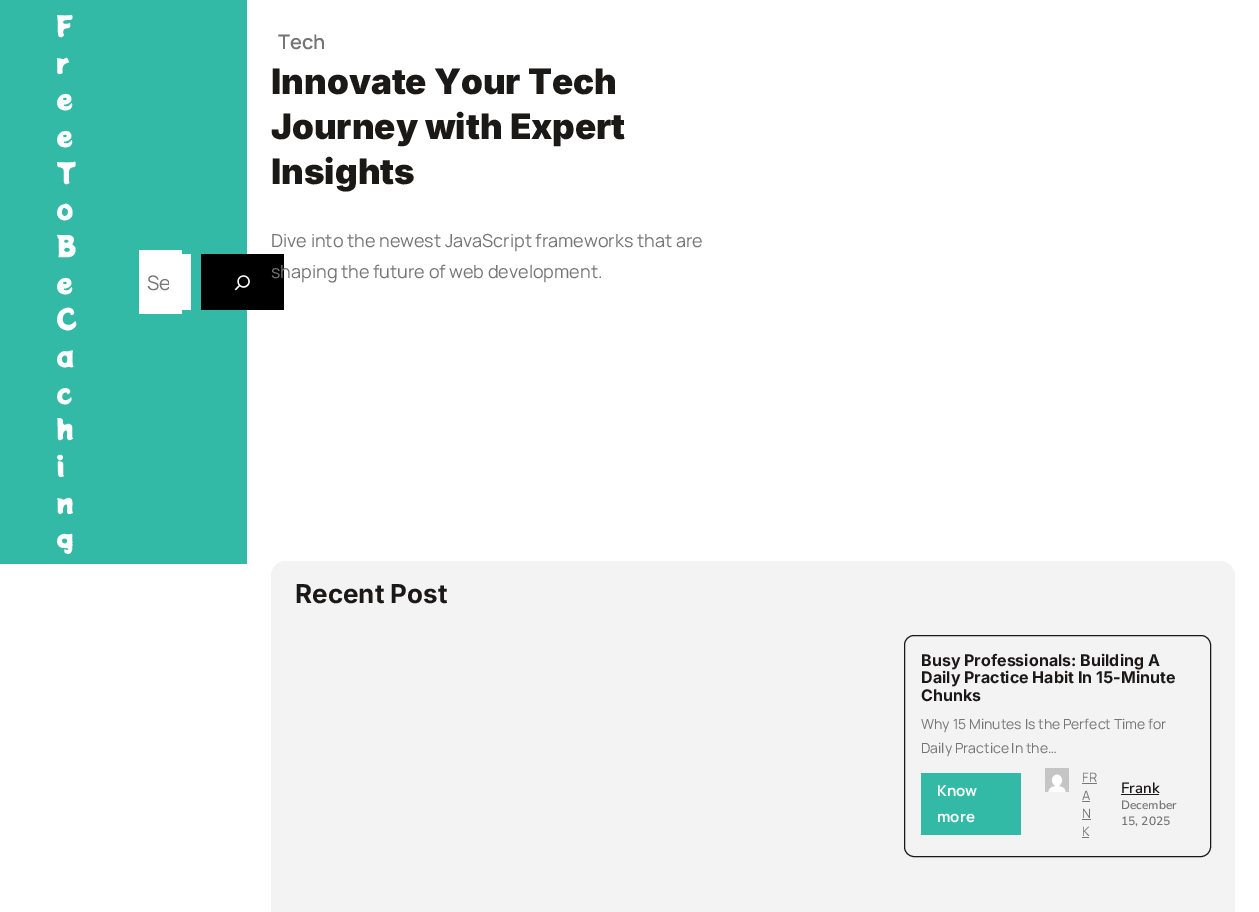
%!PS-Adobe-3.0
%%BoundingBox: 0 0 1259 912
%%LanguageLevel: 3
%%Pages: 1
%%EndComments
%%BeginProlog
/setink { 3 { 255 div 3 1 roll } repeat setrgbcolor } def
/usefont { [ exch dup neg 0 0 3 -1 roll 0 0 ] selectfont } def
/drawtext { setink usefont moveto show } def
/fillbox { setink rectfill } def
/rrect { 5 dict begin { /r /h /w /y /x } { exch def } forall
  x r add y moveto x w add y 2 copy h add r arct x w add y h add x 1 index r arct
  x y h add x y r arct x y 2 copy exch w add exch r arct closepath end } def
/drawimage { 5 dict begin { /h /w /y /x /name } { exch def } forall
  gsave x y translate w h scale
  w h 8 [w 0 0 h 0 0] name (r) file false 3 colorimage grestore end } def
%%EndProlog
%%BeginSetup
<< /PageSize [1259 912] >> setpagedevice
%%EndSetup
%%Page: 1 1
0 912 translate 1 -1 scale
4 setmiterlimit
0 0 1259 912 255 255 255 fillbox
0 0 247 564 50 186 166 fillbox
(F) 56 37 /PottaOne-Regular 28 255 255 255 drawtext
(r) 56 74 /PottaOne-Regular 28 255 255 255 drawtext
(e) 56 110 /PottaOne-Regular 28 255 255 255 drawtext
(e) 56 147 /PottaOne-Regular 28 255 255 255 drawtext
(T) 56 184 /PottaOne-Regular 28 255 255 255 drawtext
(o) 56 220 /PottaOne-Regular 28 255 255 255 drawtext
(B) 56 257 /PottaOne-Regular 28 255 255 255 drawtext
(e) 56 294 /PottaOne-Regular 28 255 255 255 drawtext
(C) 56 330 /PottaOne-Regular 28 255 255 255 drawtext
(a) 56 367 /PottaOne-Regular 28 255 255 255 drawtext
(c) 56 404 /PottaOne-Regular 28 255 255 255 drawtext
(h) 56 440 /PottaOne-Regular 28 255 255 255 drawtext
(i) 56 477 /PottaOne-Regular 28 255 255 255 drawtext
(n) 56 514 /PottaOne-Regular 28 255 255 255 drawtext
(g) 56 550 /PottaOne-Regular 28 255 255 255 drawtext
139 250 43 64 255 255 255 fillbox
182 254 9 56 255 255 255 fillbox
gsave
147 269 22 27 rectclip
(Se) 147 290 /Manrope-Regular 20 117 117 117 drawtext
grestore
201 254 83 56 0 0 0 fillbox
(assets/img1.rgb) 234 275 16 16 drawimage
(Tech) 278 49 /Manrope-SemiBold 20 117 117 117 drawtext
(Innovate Your Tech) 271 94 /Inter-Black 35 27 24 24 drawtext
(Journey with Expert) 271 139 /Inter-Black 35 27 24 24 drawtext
(Insights) 271 184 /Inter-Black 35 27 24 24 drawtext
(Dive into the newest JavaScript frameworks that are) 271 247 /Manrope-Regular 18 117 117 117 drawtext
(shaping the future of web development.) 271 278 /Manrope-Regular 18 117 117 117 drawtext
243 243 243 setink
271 561 964 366 15 rrect fill
(Recent Post) 295 603 /Inter-Bold 26 27 24 24 drawtext
904.5 635.5 306 221 9.5 rrect stroke
(Busy Professionals: Building A) 921 666 /Inter-Bold 16 27 24 24 drawtext
(Daily Practice Habit In 15-Minute) 921 683 /Inter-Bold 16 27 24 24 drawtext
(Chunks) 921 701 /Inter-Bold 16 27 24 24 drawtext
(Why 15 Minutes Is the Perfect Time for) 921 729 /Manrope-Regular 14 117 117 117 drawtext
(Daily Practice In the…) 921 753 /Manrope-Regular 14 117 117 117 drawtext
921 773 100 62 50 186 166 fillbox
(Know) 937 796 /Manrope-Bold 15 255 255 255 drawtext
(more) 937 822 /Manrope-Bold 15 255 255 255 drawtext
(assets/img2.rgb) 1045 768 24 24 drawimage
(FR) 1082 782 /Manrope-Regular 13 117 117 117 drawtext
1082 783 15 1 120 120 120 fillbox
(A) 1082 800 /Manrope-Regular 13 117 117 117 drawtext
1082 801 8 1 120 120 120 fillbox
(N) 1082 818 /Manrope-Regular 13 117 117 117 drawtext
1082 819 9 1 120 120 120 fillbox
(K) 1082 836 /Manrope-Regular 13 117 117 117 drawtext
1082 837 7 1 120 120 120 fillbox
(Frank) 1121 793 /NunitoSans-SemiBold 15 27 24 24 drawtext
1121 794 38 1 27 24 24 fillbox
(December) 1121 809 /NunitoSans-SemiBold 12 117 117 117 drawtext
(15, 2025) 1121 825 /NunitoSans-SemiBold 12 117 117 117 drawtext
showpage
%%EOF
